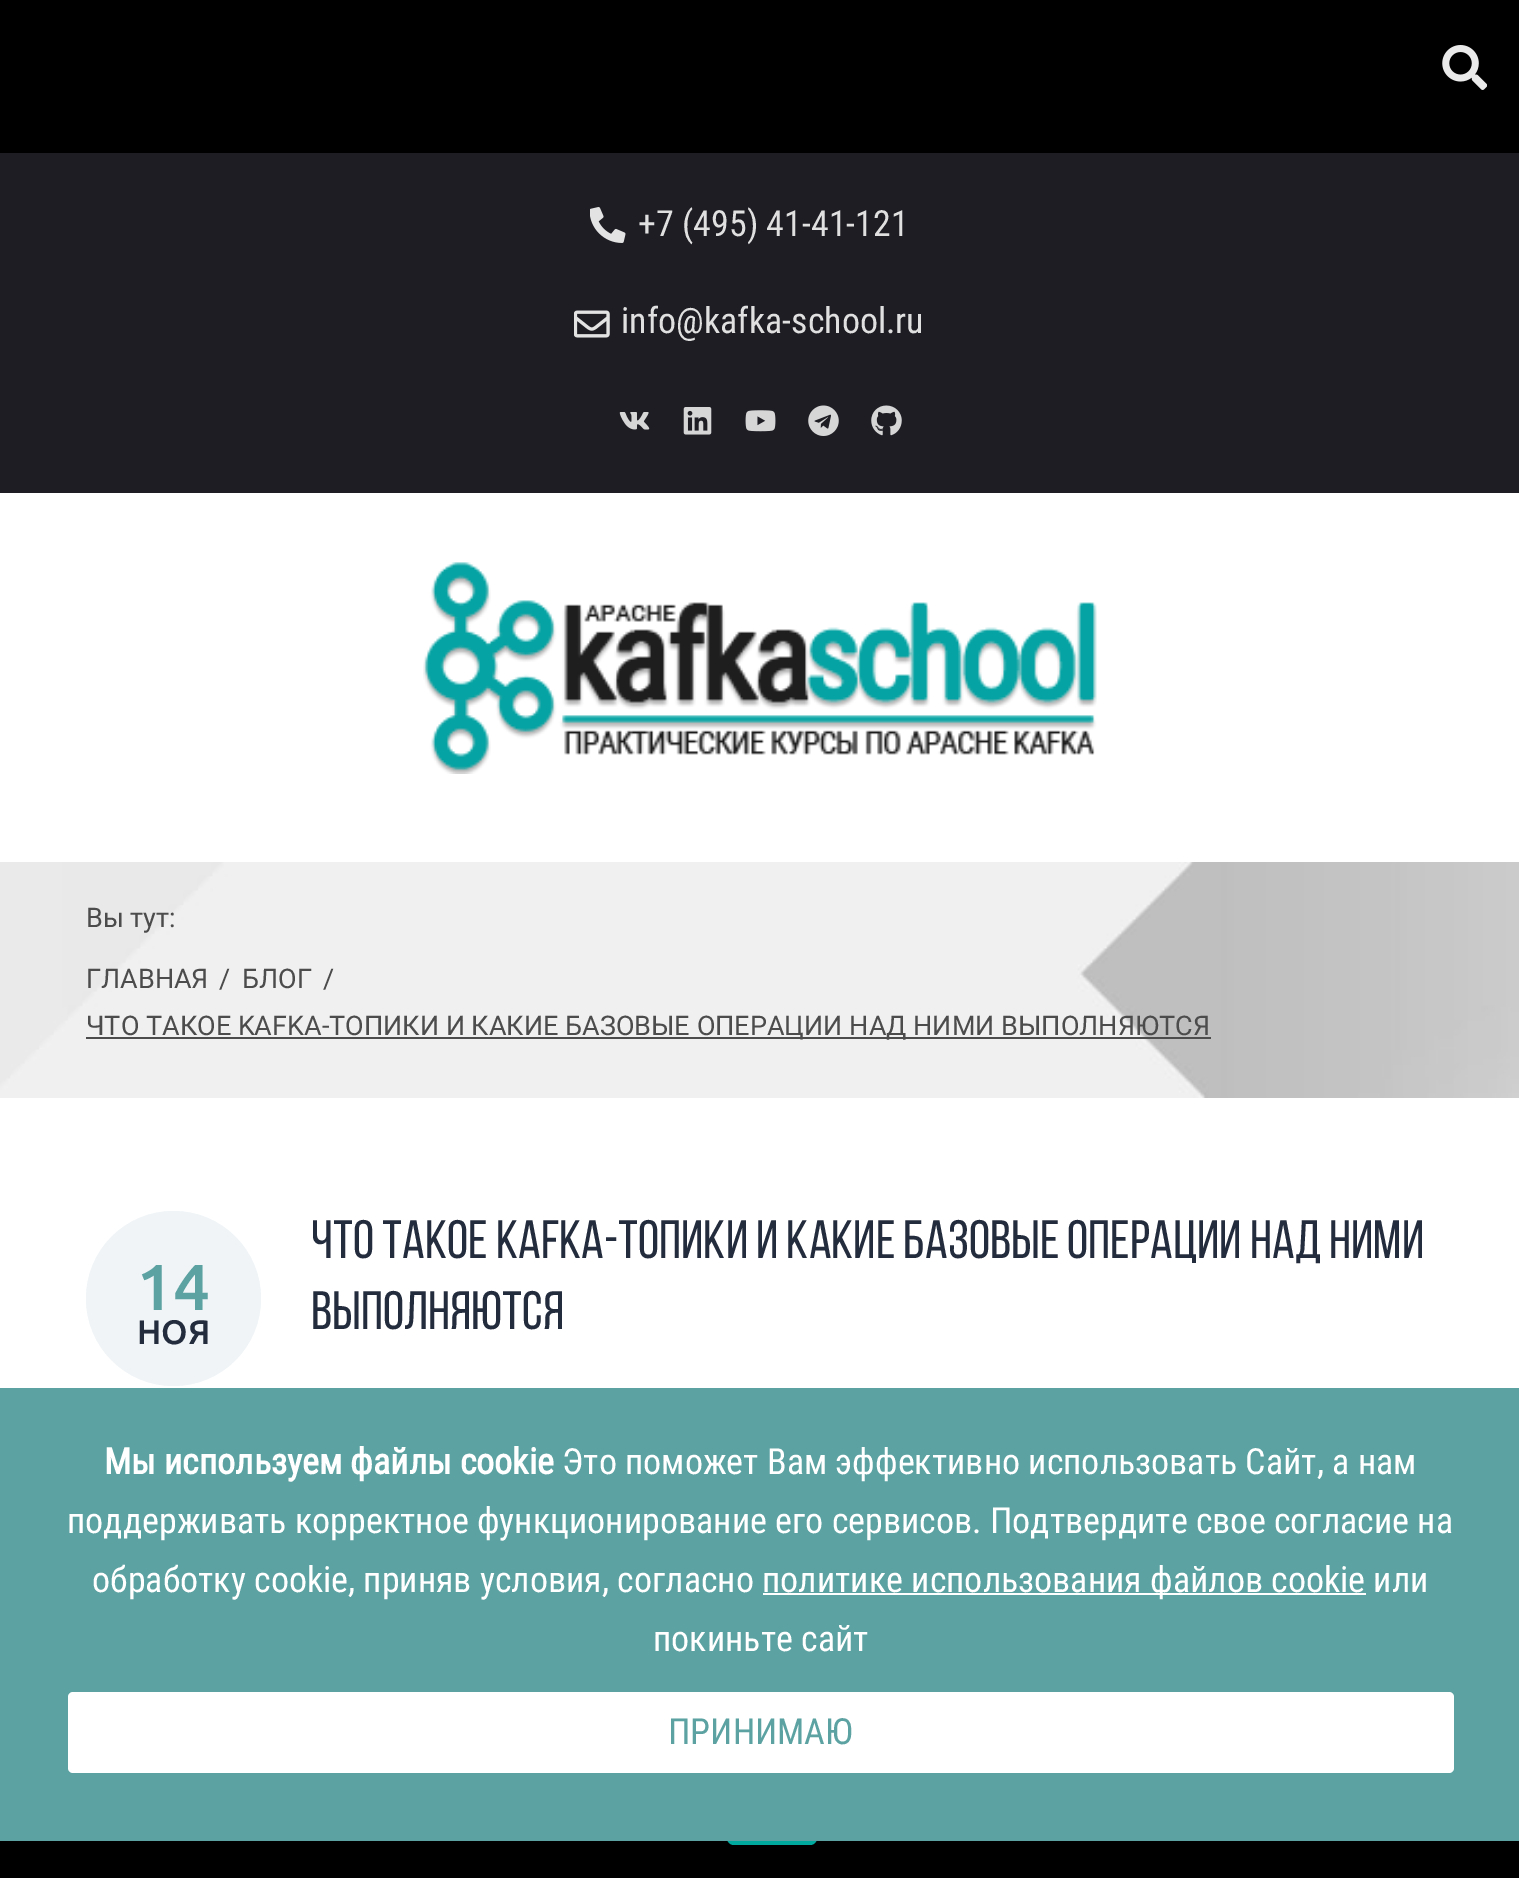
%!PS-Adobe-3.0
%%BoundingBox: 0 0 1519 1878
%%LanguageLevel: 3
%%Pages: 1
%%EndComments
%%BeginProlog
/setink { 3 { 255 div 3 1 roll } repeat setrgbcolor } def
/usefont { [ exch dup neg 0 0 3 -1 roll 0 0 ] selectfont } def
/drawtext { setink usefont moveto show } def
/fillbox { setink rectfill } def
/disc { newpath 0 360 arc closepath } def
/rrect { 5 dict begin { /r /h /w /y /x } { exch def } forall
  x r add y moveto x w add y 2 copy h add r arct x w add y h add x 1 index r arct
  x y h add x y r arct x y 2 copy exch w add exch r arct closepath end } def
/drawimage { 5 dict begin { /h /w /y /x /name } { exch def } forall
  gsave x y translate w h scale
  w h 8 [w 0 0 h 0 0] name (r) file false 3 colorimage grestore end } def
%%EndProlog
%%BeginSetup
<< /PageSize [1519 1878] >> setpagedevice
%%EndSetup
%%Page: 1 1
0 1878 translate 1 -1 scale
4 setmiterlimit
0 0 1519 1878 255 255 255 fillbox
0 0 1519 153 0 0 0 fillbox
(assets/img1.rgb) 1442 45 45 45 drawimage
0 153 1519 340 30 29 36 fillbox
(assets/img2.rgb) 590 207 36 36 drawimage
(+7 \(495\) 41-41-121) 638 236 /RobotoCondensed-Regular 36 224 224 224 drawtext
(assets/img3.rgb) 574 310 36 28 drawimage
(info@kafka-school.ru) 621 333 /RobotoCondensed-Regular 36 224 224 224 drawtext
(assets/img4.rgb) 619 412 31 18 drawimage
(assets/img5.rgb) 683 407 29 28 drawimage
(assets/img6.rgb) 745 410 31 22 drawimage
(assets/img7.rgb) 808 405 31 31 drawimage
(assets/img8.rgb) 871 405 31 31 drawimage
(assets/img9.rgb) 423 562 674 212 drawimage
(assets/img10.rgb) 0 862 1519 236 drawimage
(Вы тут:) 86 927 /Roboto-Regular 27 76 76 76 drawtext
(ГЛАВНАЯ) 86 988 /Roboto-Regular 27 76 76 76 drawtext
(/) 219 988 /Roboto-Regular 27 76 76 76 drawtext
(БЛОГ) 242 988 /Roboto-Regular 27 76 76 76 drawtext
(/) 323 988 /Roboto-Regular 27 76 76 76 drawtext
86 1037 1125 2 76 76 76 fillbox
(ЧТО ТАКОЕ KAFKA-ТОПИКИ И КАКИЕ БАЗОВЫЕ ОПЕРАЦИИ НАД НИМИ ВЫПОЛНЯЮТСЯ) 86 1035 /Roboto-Regular 27 76 76 76 drawtext
240 244 247 setink
173.5 1298.5 87.5 disc fill
(14) 136 1310 /Ubuntu-Medium 65 92 162 162 drawtext
(НОЯ) 137 1344 /Ubuntu-Medium 34 35 44 61 drawtext
(Что такое Kafka-топики и какие базовые операции над ними) 311 1258 /BebasNeue-Regular 54 35 44 61 drawtext
(выполняются) 311 1329 /BebasNeue-Regular 54 35 44 61 drawtext
0 1841 1519 37 0 0 0 fillbox
0 169 157 setink
727 1778 90 67 7 rrect fill
0 1388 1519 453 92 162 162 fillbox
(Мы используем файлы cookie) 104 1474 /RobotoCondensed-Bold 36 255 255 255 drawtext
(Это поможет Вам эффективно использовать Сайт, а нам) 562 1474 /RobotoCondensed-Regular 36 255 255 255 drawtext
(поддерживать корректное функционирование его сервисов. Подтвердите свое согласие на) 67 1533 /RobotoCondensed-Regular 36 255 255 255 drawtext
(обработку cookie, приняв условия, согласно) 92 1592 /RobotoCondensed-Regular 36 255 255 255 drawtext
763 1593 603 2 255 255 255 fillbox
(политике использования файлов cookie или) 762 1592 /RobotoCondensed-Regular 36 255 255 255 drawtext
(покиньте сайт) 653 1651 /RobotoCondensed-Regular 36 255 255 255 drawtext
68 1692 1386 81 5 rrect fill
(ПРИНИМАЮ) 668 1744 /RobotoCondensed-Regular 36 92 162 162 drawtext
showpage
%%EOF
